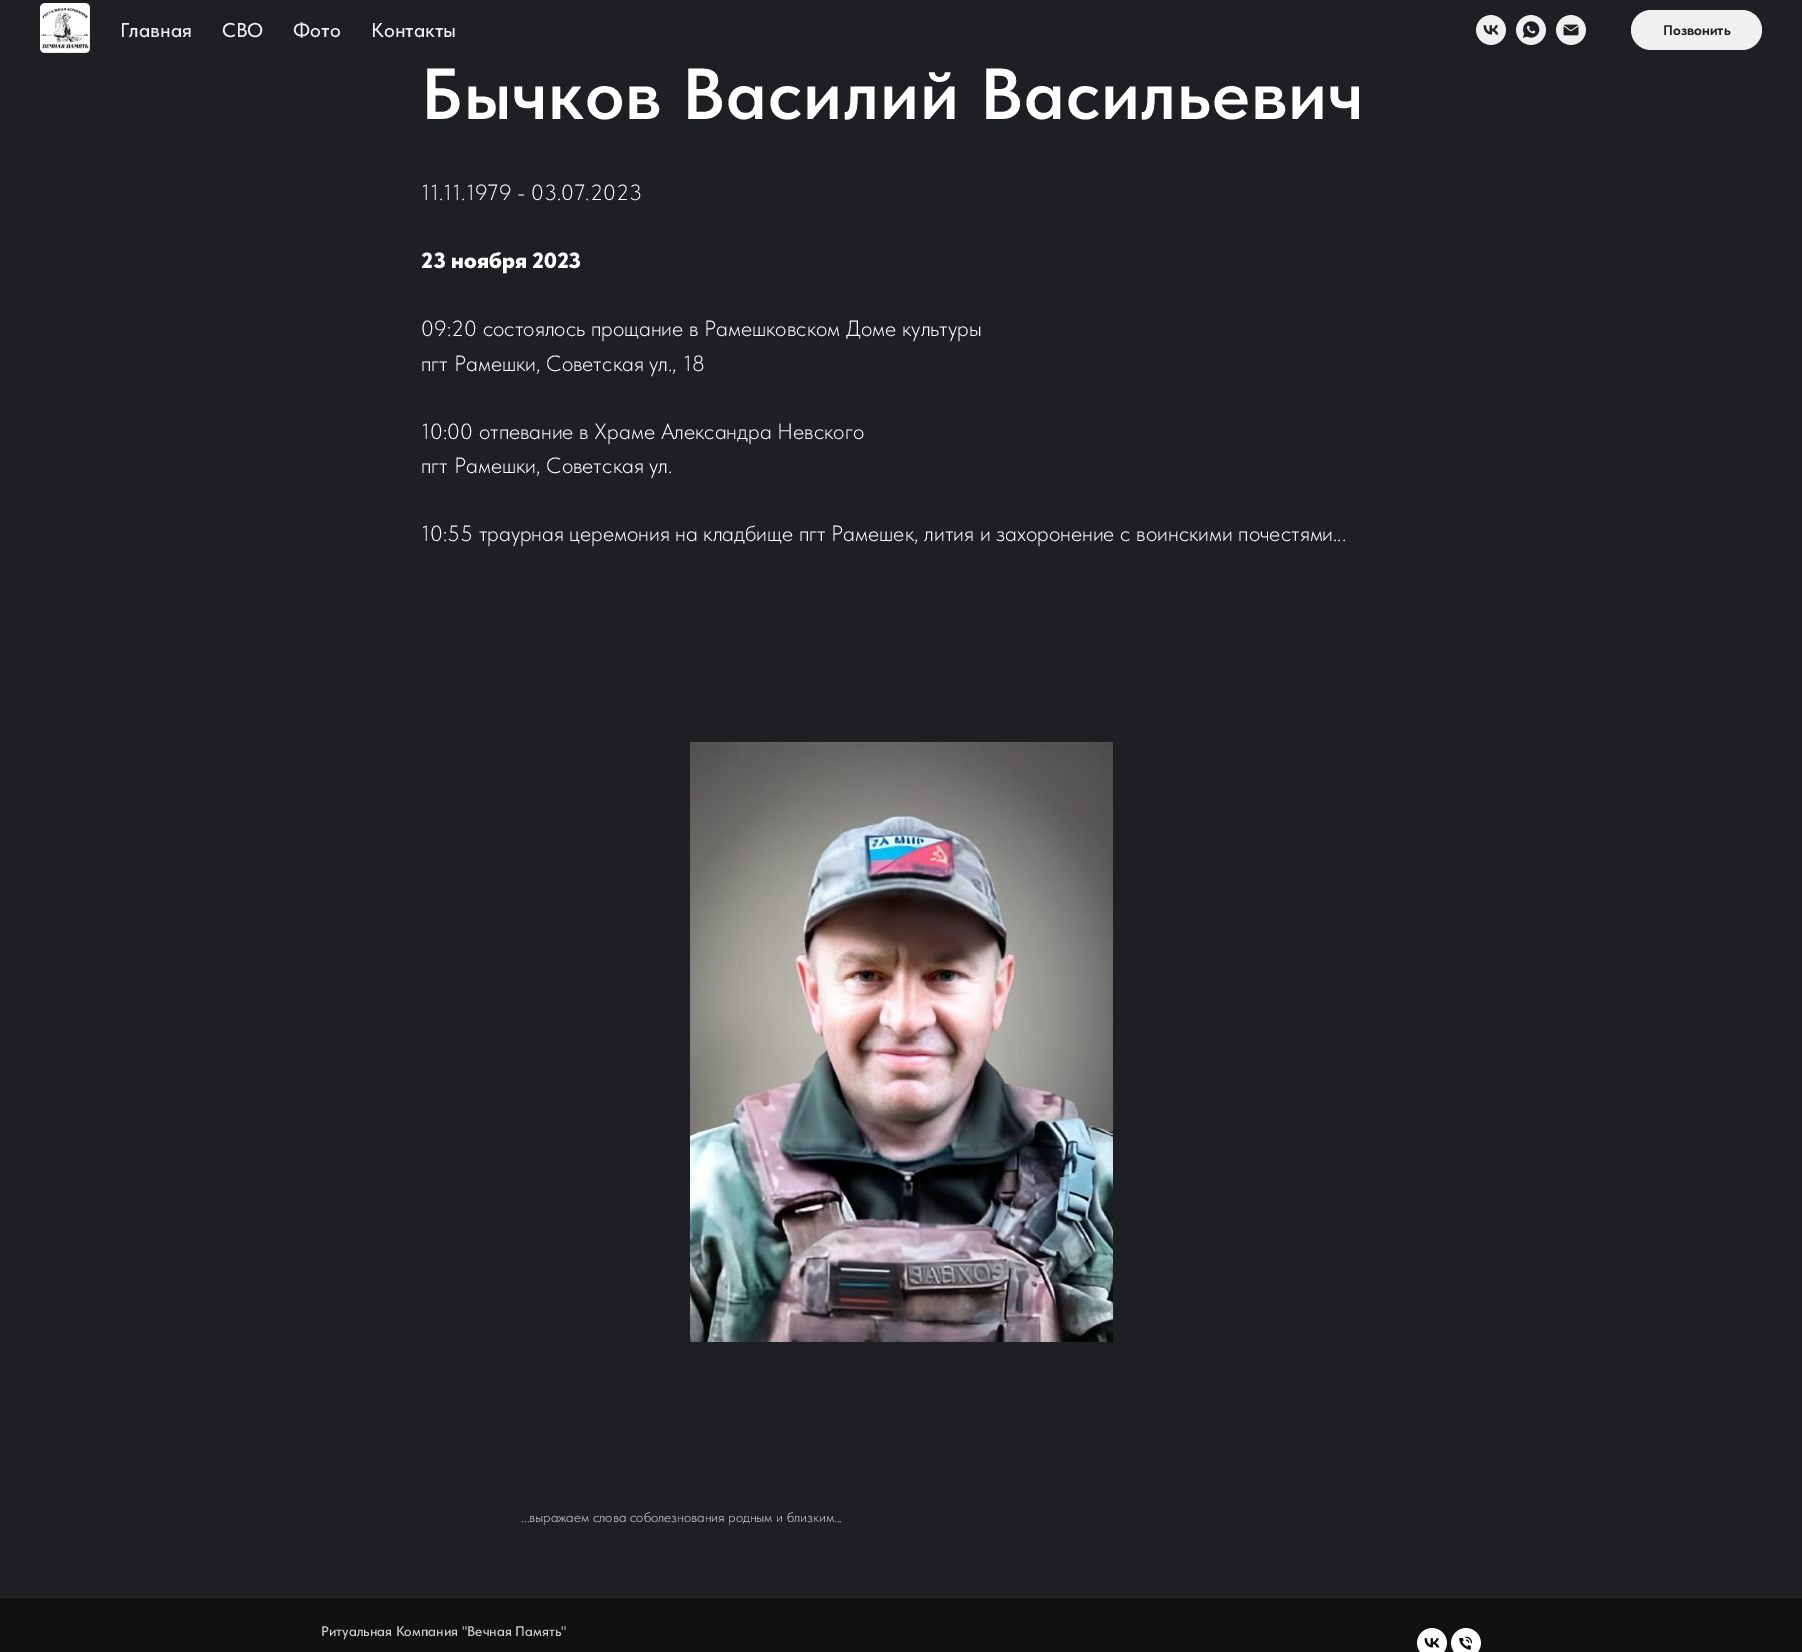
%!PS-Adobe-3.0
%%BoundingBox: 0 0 1802 1652
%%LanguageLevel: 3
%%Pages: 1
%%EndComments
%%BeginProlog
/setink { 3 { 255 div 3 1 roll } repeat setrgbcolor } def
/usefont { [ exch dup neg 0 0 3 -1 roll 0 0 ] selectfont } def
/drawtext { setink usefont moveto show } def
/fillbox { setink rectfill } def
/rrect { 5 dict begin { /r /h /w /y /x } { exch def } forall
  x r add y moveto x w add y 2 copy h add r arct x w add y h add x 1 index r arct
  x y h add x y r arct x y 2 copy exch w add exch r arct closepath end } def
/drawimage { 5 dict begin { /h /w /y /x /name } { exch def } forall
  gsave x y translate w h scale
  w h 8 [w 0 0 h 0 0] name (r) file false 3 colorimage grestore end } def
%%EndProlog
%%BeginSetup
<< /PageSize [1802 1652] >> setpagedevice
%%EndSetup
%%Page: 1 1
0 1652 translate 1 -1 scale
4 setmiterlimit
0 0 1802 1652 30 31 35 fillbox
(assets/img1.rgb) 40 3 50 50 drawimage
(Главная) 120 37 /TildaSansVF-Medium 20 240 240 240 drawtext
(СВО) 222 37 /TildaSansVF-Medium 20 240 240 240 drawtext
(Фото) 293 37 /TildaSansVF-Medium 20 240 240 240 drawtext
(Контакты) 371 37 /TildaSansVF-Medium 20 240 240 240 drawtext
(assets/img2.rgb) 1476 15 30 30 drawimage
(assets/img3.rgb) 1516 15 30 30 drawimage
(assets/img4.rgb) 1556 15 30 30 drawimage
1631 10 131 40 20 rrect fill
(Позвонить) 1663 35 /TildaSansVF-Bold 14 30 31 35 drawtext
/TildaSansVF-SemiBold 72 usefont
255 255 255 setink
421 119 moveto 1 0 (Бычков Василий Васильевич) ashow
(11.11.1979 - 03.07.2023) 421 200 /TildaSansVF-Light 22 255 255 255 drawtext
(23 ноября 2023) 421 268 /TildaSansVF-Black 22 255 255 255 drawtext
(09:20 состоялось прощание в Рамешковском Доме культуры) 421 336 /TildaSansVF-Light 22 255 255 255 drawtext
(пгт Рамешки, Советская ул., 18) 421 371 /TildaSansVF-Light 22 255 255 255 drawtext
(10:00 отпевание в Храме Александра Невского) 421 439 /TildaSansVF-Light 22 255 255 255 drawtext
(пгт Рамешки, Советская ул.) 421 473 /TildaSansVF-Light 22 255 255 255 drawtext
(10:55 траурная церемония на кладбище пгт Рамешек, лития и захоронение с воинскими почестями...) 421 541 /TildaSansVF-Light 22 255 255 255 drawtext
(assets/img5.rgb) 690 742 423 600 drawimage
(...выражаем слова соболезнования родным и близким...) 521 1522 /TildaSansVF-Light 14 210 210 210 drawtext
0 1598 1802 54 17 17 17 fillbox
0 1597 1802 1 41 41 41 fillbox
(Ритуальная Компания "Вечная Память") 321 1636 /TildaSansVF-Medium 14 210 210 210 drawtext
(assets/img6.rgb) 1417 1628 30 24 drawimage
(assets/img7.rgb) 1451 1628 30 24 drawimage
showpage
%%EOF
